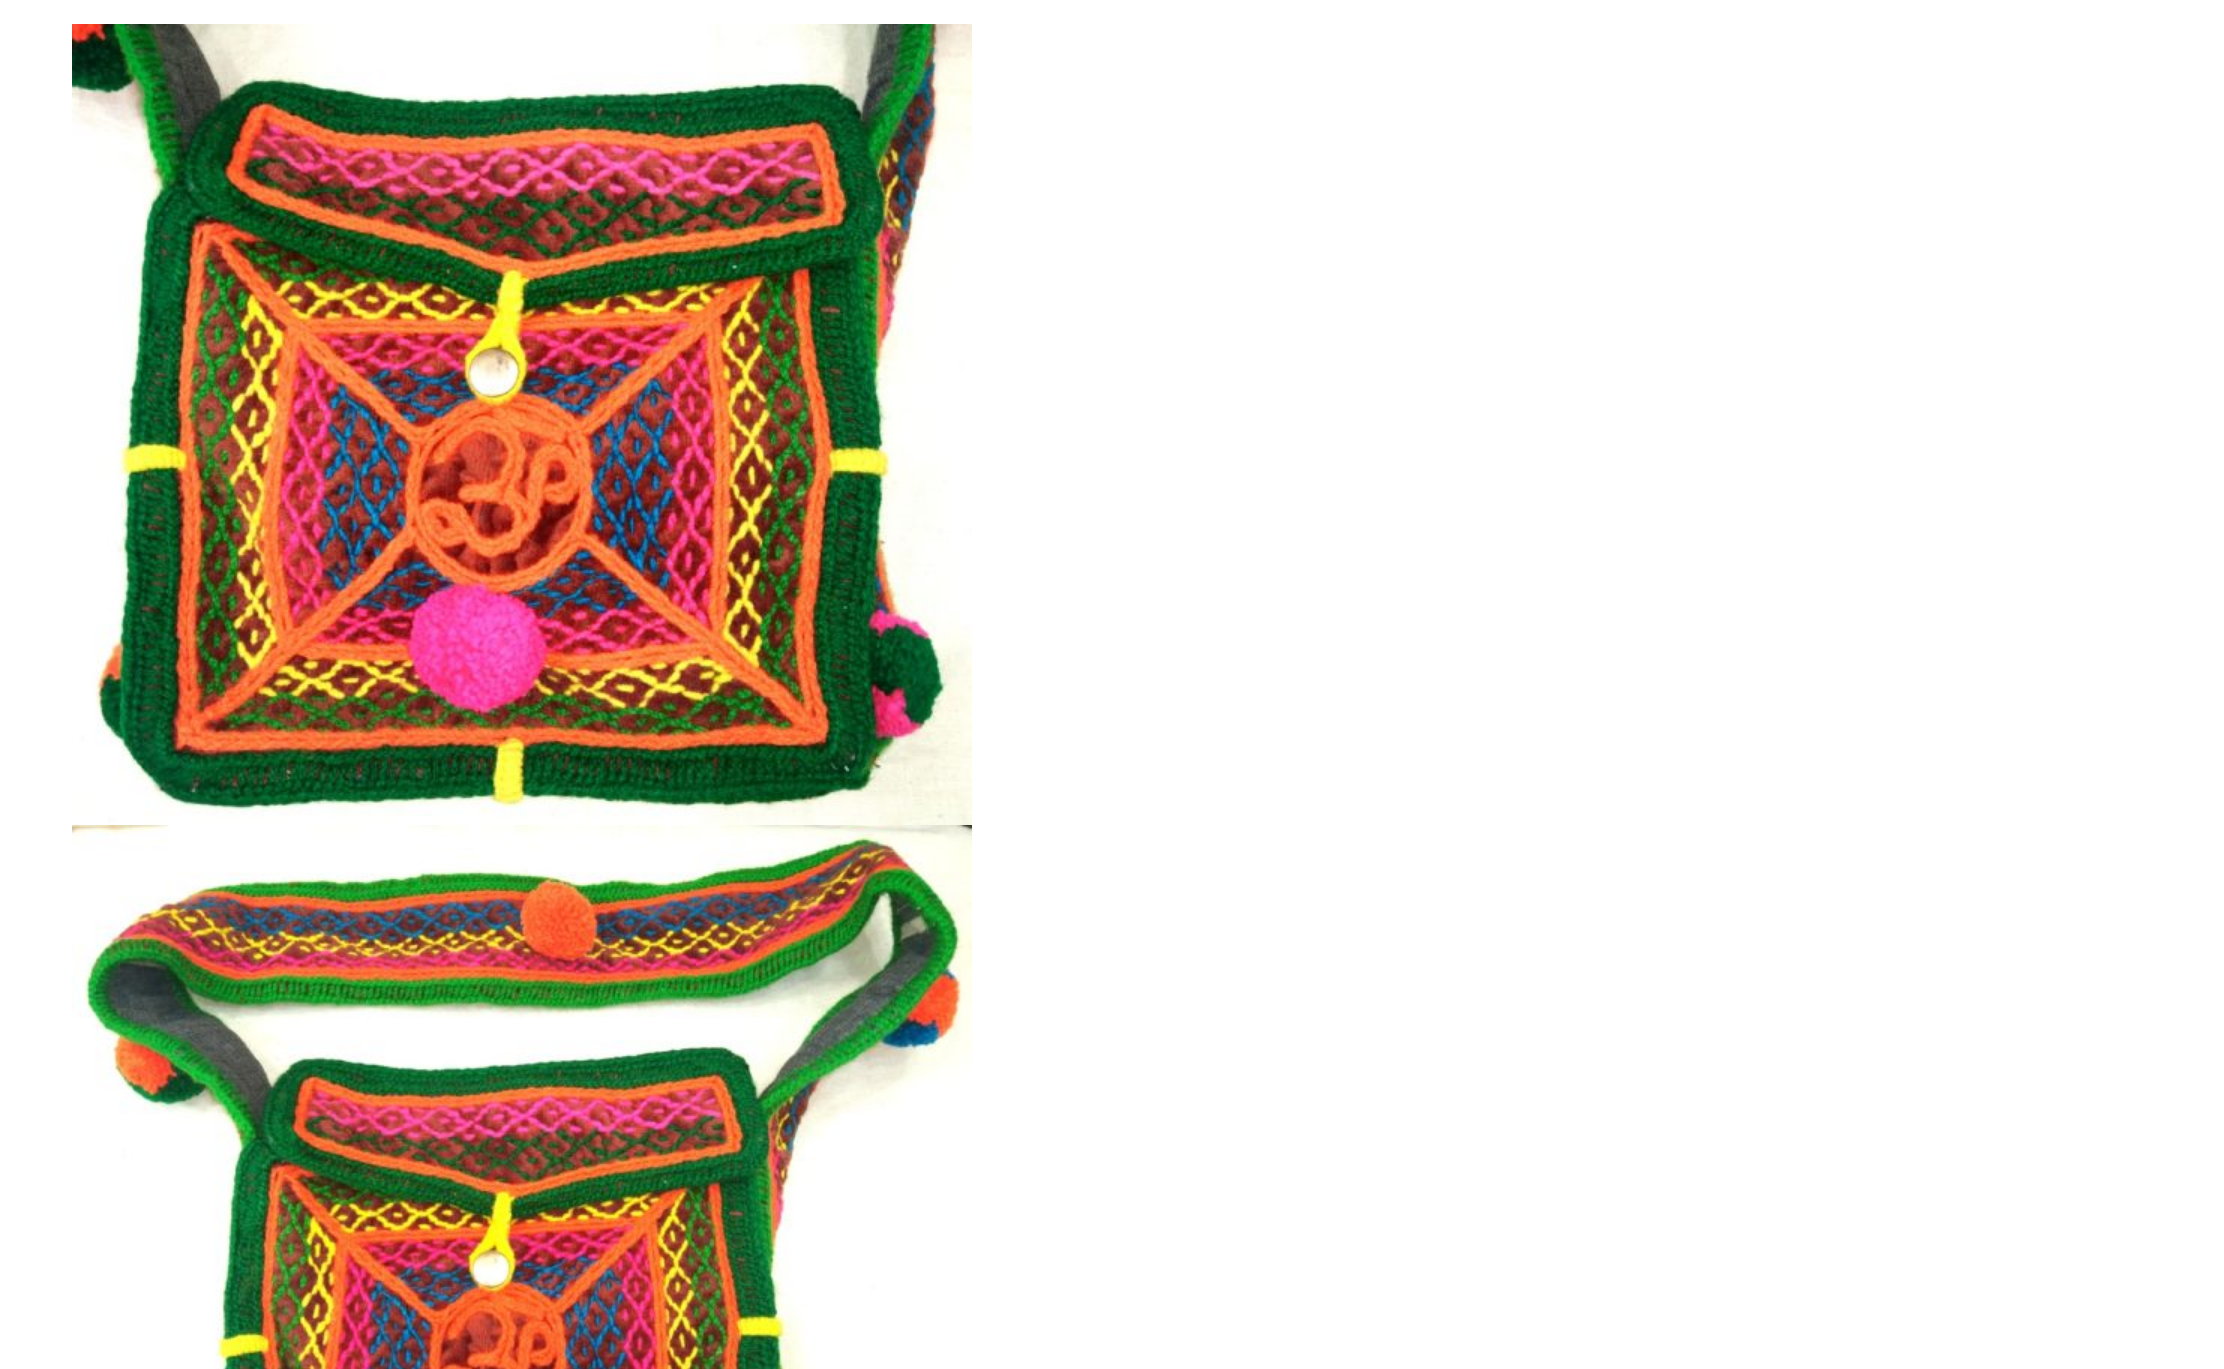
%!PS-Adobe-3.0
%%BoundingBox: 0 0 2224 1369
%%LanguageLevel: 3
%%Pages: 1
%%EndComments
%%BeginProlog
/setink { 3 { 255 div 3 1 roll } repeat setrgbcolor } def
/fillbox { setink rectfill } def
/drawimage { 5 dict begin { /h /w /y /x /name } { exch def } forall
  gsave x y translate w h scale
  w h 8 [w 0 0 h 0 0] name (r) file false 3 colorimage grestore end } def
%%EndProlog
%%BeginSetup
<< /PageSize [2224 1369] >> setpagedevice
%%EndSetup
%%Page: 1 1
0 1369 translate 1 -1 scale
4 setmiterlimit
0 0 2224 1369 255 255 255 fillbox
(assets/img1.rgb) 72 24 900 801 drawimage
(assets/img2.rgb) 72 825 900 544 drawimage
showpage
%%EOF
